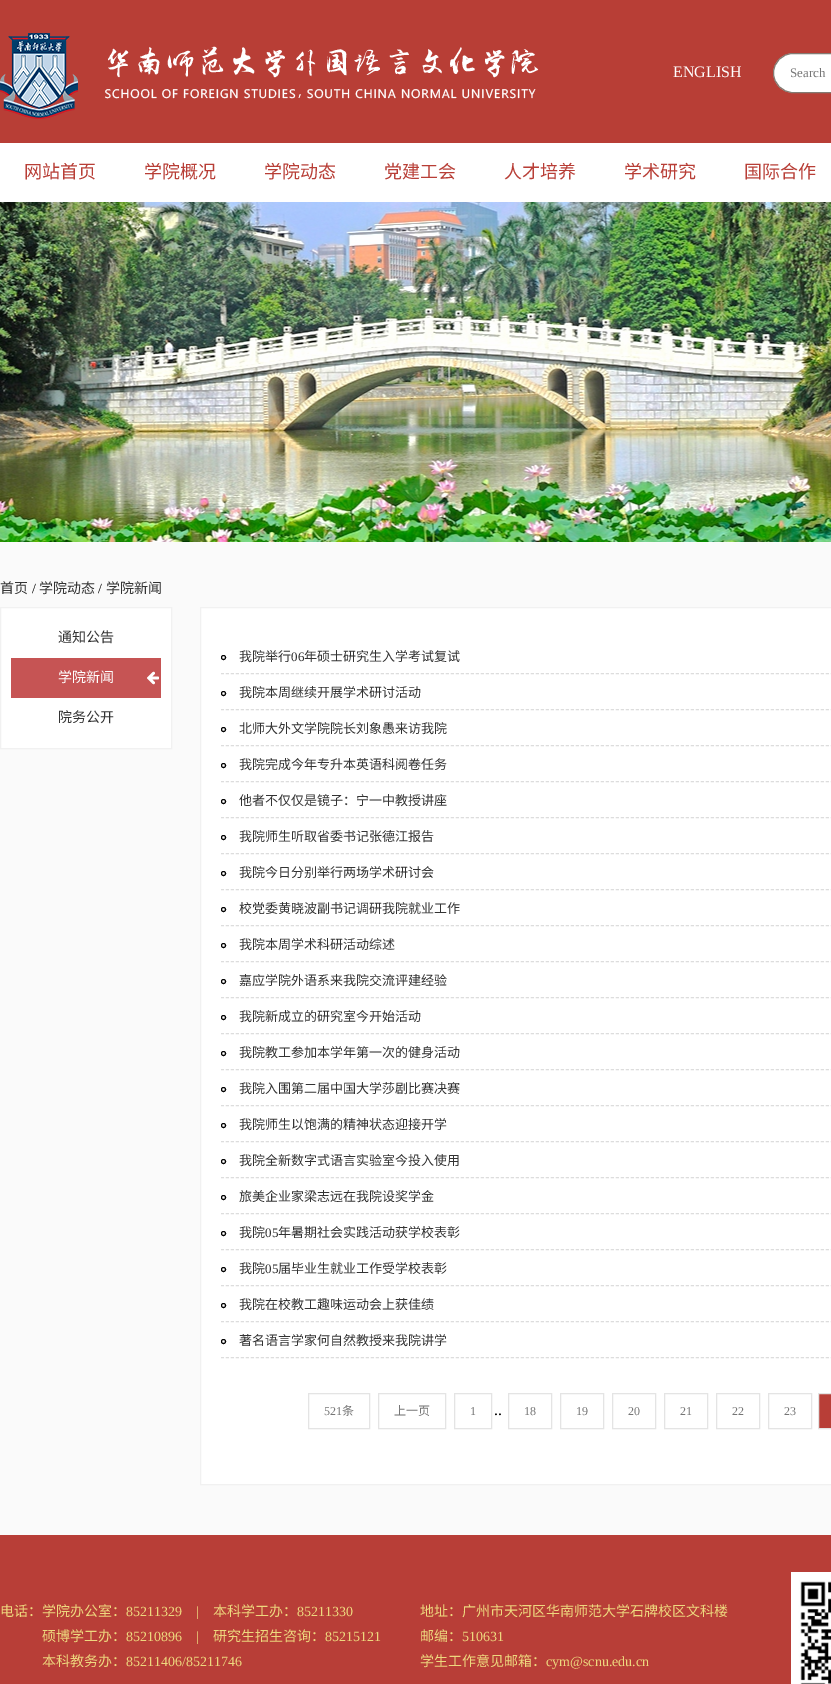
%!PS-Adobe-3.0
%%BoundingBox: 0 0 831 1684
%%LanguageLevel: 3
%%Pages: 1
%%EndComments
%%BeginProlog
/setink { 3 { 255 div 3 1 roll } repeat setrgbcolor } def
/usefont { [ exch dup neg 0 0 3 -1 roll 0 0 ] selectfont } def
/drawtext { setink usefont moveto show } def
/fillbox { setink rectfill } def
/disc { newpath 0 360 arc closepath } def
/rrect { 5 dict begin { /r /h /w /y /x } { exch def } forall
  x r add y moveto x w add y 2 copy h add r arct x w add y h add x 1 index r arct
  x y h add x y r arct x y 2 copy exch w add exch r arct closepath end } def
/drawimage { 5 dict begin { /h /w /y /x /name } { exch def } forall
  gsave x y translate w h scale
  w h 8 [w 0 0 h 0 0] name (r) file false 3 colorimage grestore end } def
%%EndProlog
%%BeginSetup
<< /PageSize [831 1684] >> setpagedevice
%%EndSetup
%%Page: 1 1
0 1684 translate 1 -1 scale
4 setmiterlimit
0 0 831 1684 255 255 255 fillbox
0 0 831 143 184 62 54 fillbox
(assets/img1.rgb) 0 33 539 86 drawimage
(ENGLISH) 673 77 /LiberationSerif-Regular 16 255 255 255 drawtext
773.5 53.5 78 39 19.5 rrect gsave fill grestore
131 123 115 setink
stroke
(Search) 790 77 /LiberationSerif-Regular 13 117 117 117 drawtext
(网站首页) 24 178 /NotoSansCJKSC-Regular 18 184 62 54 drawtext
(学院概况) 144 178 /NotoSansCJKSC-Regular 18 184 62 54 drawtext
(学院动态) 264 178 /NotoSansCJKSC-Regular 18 184 62 54 drawtext
(党建工会) 384 178 /NotoSansCJKSC-Regular 18 184 62 54 drawtext
(人才培养) 504 178 /NotoSansCJKSC-Regular 18 184 62 54 drawtext
(学术研究) 624 178 /NotoSansCJKSC-Regular 18 184 62 54 drawtext
(国际合作) 744 178 /NotoSansCJKSC-Regular 18 184 62 54 drawtext
0 542 831 993 250 250 250 fillbox
(assets/img2.rgb) 0 202 831 340 drawimage
(首页) 0 593 /NotoSansCJKSC-Regular 14 51 51 51 drawtext
(/) 32 593 /LiberationSerif-Regular 14 0 0 0 drawtext
(学院动态) 39 593 /NotoSansCJKSC-Regular 14 51 51 51 drawtext
(/) 98 593 /LiberationSerif-Regular 14 0 0 0 drawtext
(学院新闻) 106 593 /NotoSansCJKSC-Regular 14 51 51 51 drawtext
255 255 255 setink
0.5 607.5 moveto 171.5 607.5 lineto 171.5 748.5 lineto 0.5 748.5 lineto closepath gsave fill grestore
241 241 241 setink
stroke
(通知公告) 58 642 /NotoSansCJKSC-Regular 14 51 51 51 drawtext
11 658 150 40 198 84 84 fillbox
(assets/img3.rgb) 147 671 12 14 drawimage
(学院新闻) 58 682 /NotoSansCJKSC-Regular 14 255 255 255 drawtext
(院务公开) 58 722 /NotoSansCJKSC-Regular 14 51 51 51 drawtext
255 255 255 setink
200.5 607.5 moveto 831.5 607.5 lineto 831.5 1484.5 lineto 200.5 1484.5 lineto closepath gsave fill grestore
241 241 241 setink
stroke
221 221 221 setink
[3 2] 0 setdash
221 673.5 moveto 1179 673.5 lineto stroke
0 0 0 setink
[] 0 setdash
223.5 657.5 2 disc stroke
(我院举行) 239 661 /NotoSansCJKSC-Regular 13 51 51 51 drawtext
(06) 291 661 /LiberationSerif-Regular 13 51 51 51 drawtext
(年硕士研究生入学考试复试) 304 661 /NotoSansCJKSC-Regular 13 51 51 51 drawtext
221 221 221 setink
[3 2] 0 setdash
221 709.5 moveto 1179 709.5 lineto stroke
0 0 0 setink
[] 0 setdash
223.5 693.5 2 disc stroke
(我院本周继续开展学术研讨活动) 239 697 /NotoSansCJKSC-Regular 13 51 51 51 drawtext
221 221 221 setink
[3 2] 0 setdash
221 745.5 moveto 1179 745.5 lineto stroke
0 0 0 setink
[] 0 setdash
223.5 729.5 2 disc stroke
(北师大外文学院院长刘象愚来访我院) 239 733 /NotoSansCJKSC-Regular 13 51 51 51 drawtext
221 221 221 setink
[3 2] 0 setdash
221 781.5 moveto 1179 781.5 lineto stroke
0 0 0 setink
[] 0 setdash
223.5 765.5 2 disc stroke
(我院完成今年专升本英语科阅卷任务) 239 769 /NotoSansCJKSC-Regular 13 51 51 51 drawtext
221 221 221 setink
[3 2] 0 setdash
221 817.5 moveto 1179 817.5 lineto stroke
0 0 0 setink
[] 0 setdash
223.5 801.5 2 disc stroke
(他者不仅仅是镜子：宁一中教授讲座) 239 805 /NotoSansCJKSC-Regular 13 51 51 51 drawtext
221 221 221 setink
[3 2] 0 setdash
221 853.5 moveto 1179 853.5 lineto stroke
0 0 0 setink
[] 0 setdash
223.5 837.5 2 disc stroke
(我院师生听取省委书记张德江报告) 239 841 /NotoSansCJKSC-Regular 13 51 51 51 drawtext
221 221 221 setink
[3 2] 0 setdash
221 889.5 moveto 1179 889.5 lineto stroke
0 0 0 setink
[] 0 setdash
223.5 873.5 2 disc stroke
(我院今日分别举行两场学术研讨会) 239 877 /NotoSansCJKSC-Regular 13 51 51 51 drawtext
221 221 221 setink
[3 2] 0 setdash
221 925.5 moveto 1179 925.5 lineto stroke
0 0 0 setink
[] 0 setdash
223.5 909.5 2 disc stroke
(校党委黄晓波副书记调研我院就业工作) 239 913 /NotoSansCJKSC-Regular 13 51 51 51 drawtext
221 221 221 setink
[3 2] 0 setdash
221 961.5 moveto 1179 961.5 lineto stroke
0 0 0 setink
[] 0 setdash
223.5 945.5 2 disc stroke
(我院本周学术科研活动综述) 239 949 /NotoSansCJKSC-Regular 13 51 51 51 drawtext
221 221 221 setink
[3 2] 0 setdash
221 997.5 moveto 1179 997.5 lineto stroke
0 0 0 setink
[] 0 setdash
223.5 981.5 2 disc stroke
(嘉应学院外语系来我院交流评建经验) 239 985 /NotoSansCJKSC-Regular 13 51 51 51 drawtext
221 221 221 setink
[3 2] 0 setdash
221 1033.5 moveto 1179 1033.5 lineto stroke
0 0 0 setink
[] 0 setdash
223.5 1017.5 2 disc stroke
(我院新成立的研究室今开始活动) 239 1021 /NotoSansCJKSC-Regular 13 51 51 51 drawtext
221 221 221 setink
[3 2] 0 setdash
221 1069.5 moveto 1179 1069.5 lineto stroke
0 0 0 setink
[] 0 setdash
223.5 1053.5 2 disc stroke
(我院教工参加本学年第一次的健身活动) 239 1057 /NotoSansCJKSC-Regular 13 51 51 51 drawtext
221 221 221 setink
[3 2] 0 setdash
221 1105.5 moveto 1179 1105.5 lineto stroke
0 0 0 setink
[] 0 setdash
223.5 1089.5 2 disc stroke
(我院入围第二届中国大学莎剧比赛决赛) 239 1093 /NotoSansCJKSC-Regular 13 51 51 51 drawtext
221 221 221 setink
[3 2] 0 setdash
221 1141.5 moveto 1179 1141.5 lineto stroke
0 0 0 setink
[] 0 setdash
223.5 1125.5 2 disc stroke
(我院师生以饱满的精神状态迎接开学) 239 1129 /NotoSansCJKSC-Regular 13 51 51 51 drawtext
221 221 221 setink
[3 2] 0 setdash
221 1177.5 moveto 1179 1177.5 lineto stroke
0 0 0 setink
[] 0 setdash
223.5 1161.5 2 disc stroke
(我院全新数字式语言实验室今投入使用) 239 1165 /NotoSansCJKSC-Regular 13 51 51 51 drawtext
221 221 221 setink
[3 2] 0 setdash
221 1213.5 moveto 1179 1213.5 lineto stroke
0 0 0 setink
[] 0 setdash
223.5 1197.5 2 disc stroke
(旅美企业家梁志远在我院设奖学金) 239 1201 /NotoSansCJKSC-Regular 13 51 51 51 drawtext
221 221 221 setink
[3 2] 0 setdash
221 1249.5 moveto 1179 1249.5 lineto stroke
0 0 0 setink
[] 0 setdash
223.5 1233.5 2 disc stroke
(我院) 239 1237 /NotoSansCJKSC-Regular 13 51 51 51 drawtext
(05) 265 1237 /LiberationSerif-Regular 13 51 51 51 drawtext
(年暑期社会实践活动获学校表彰) 278 1237 /NotoSansCJKSC-Regular 13 51 51 51 drawtext
221 221 221 setink
[3 2] 0 setdash
221 1285.5 moveto 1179 1285.5 lineto stroke
0 0 0 setink
[] 0 setdash
223.5 1269.5 2 disc stroke
(我院) 239 1273 /NotoSansCJKSC-Regular 13 51 51 51 drawtext
(05) 265 1273 /LiberationSerif-Regular 13 51 51 51 drawtext
(届毕业生就业工作受学校表彰) 278 1273 /NotoSansCJKSC-Regular 13 51 51 51 drawtext
221 221 221 setink
[3 2] 0 setdash
221 1321.5 moveto 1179 1321.5 lineto stroke
0 0 0 setink
[] 0 setdash
223.5 1305.5 2 disc stroke
(我院在校教工趣味运动会上获佳绩) 239 1309 /NotoSansCJKSC-Regular 13 51 51 51 drawtext
221 221 221 setink
[3 2] 0 setdash
221 1357.5 moveto 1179 1357.5 lineto stroke
0 0 0 setink
[] 0 setdash
223.5 1341.5 2 disc stroke
(著名语言学家何自然教授来我院讲学) 239 1345 /NotoSansCJKSC-Regular 13 51 51 51 drawtext
228 228 228 setink
308.5 1393.5 61 35 rectstroke
(521) 324 1415 /LiberationSerif-Regular 12 117 117 117 drawtext
(条) 342 1415 /NotoSansCJKSC-Regular 12 117 117 117 drawtext
228 228 228 setink
378.5 1393.5 67 35 rectstroke
(上一页) 394 1415 /NotoSansCJKSC-Regular 12 117 117 117 drawtext
228 228 228 setink
454.5 1393.5 37 35 rectstroke
(1) 470 1415 /LiberationSerif-Regular 12 117 117 117 drawtext
(..) 494 1415 /LiberationSerif-Regular 16 0 0 0 drawtext
228 228 228 setink
508.5 1393.5 43 35 rectstroke
(18) 524 1415 /LiberationSerif-Regular 12 117 117 117 drawtext
228 228 228 setink
560.5 1393.5 43 35 rectstroke
(19) 576 1415 /LiberationSerif-Regular 12 117 117 117 drawtext
228 228 228 setink
612.5 1393.5 43 35 rectstroke
(20) 628 1415 /LiberationSerif-Regular 12 117 117 117 drawtext
228 228 228 setink
664.5 1393.5 43 35 rectstroke
(21) 680 1415 /LiberationSerif-Regular 12 117 117 117 drawtext
228 228 228 setink
716.5 1393.5 43 35 rectstroke
(22) 732 1415 /LiberationSerif-Regular 12 117 117 117 drawtext
228 228 228 setink
768.5 1393.5 43 35 rectstroke
(23) 784 1415 /LiberationSerif-Regular 12 117 117 117 drawtext
184 62 55 setink
818.5 1393.5 moveto 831.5 1393.5 lineto 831.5 1428.5 lineto 818.5 1428.5 lineto closepath gsave fill grestore
228 228 228 setink
stroke
0 1535 831 149 184 62 55 fillbox
(电话：学院办公室：) 0 1616 /NotoSansCJKSC-Regular 14 238 216 126 drawtext
(85211329) 126 1616 /LiberationSerif-Regular 14 238 216 126 drawtext
(|) 196 1616 /LiberationSerif-Regular 14 238 216 126 drawtext
(本科学工办：) 213 1616 /NotoSansCJKSC-Regular 14 238 216 126 drawtext
(85211330) 297 1616 /LiberationSerif-Regular 14 238 216 126 drawtext
(硕博学工办：) 42 1641 /NotoSansCJKSC-Regular 14 238 216 126 drawtext
(85210896) 126 1641 /LiberationSerif-Regular 14 238 216 126 drawtext
(|) 196 1641 /LiberationSerif-Regular 14 238 216 126 drawtext
(研究生招生咨询：) 213 1641 /NotoSansCJKSC-Regular 14 238 216 126 drawtext
(85215121) 325 1641 /LiberationSerif-Regular 14 238 216 126 drawtext
(本科教务办：) 42 1666 /NotoSansCJKSC-Regular 14 238 216 126 drawtext
(85211406/85211746) 126 1666 /LiberationSerif-Regular 14 238 216 126 drawtext
(地址：广州市天河区华南师范大学石牌校区文科楼) 420 1616 /NotoSansCJKSC-Regular 14 238 216 126 drawtext
(邮编：) 420 1641 /NotoSansCJKSC-Regular 14 238 216 126 drawtext
(510631) 462 1641 /LiberationSerif-Regular 14 238 216 126 drawtext
(学生工作意见邮箱：) 420 1666 /NotoSansCJKSC-Regular 14 238 216 126 drawtext
(cym@scnu.edu.cn) 546 1666 /LiberationSerif-Regular 14 238 216 126 drawtext
(assets/img4.rgb) 791 1572 40 112 drawimage
showpage
%%EOF
